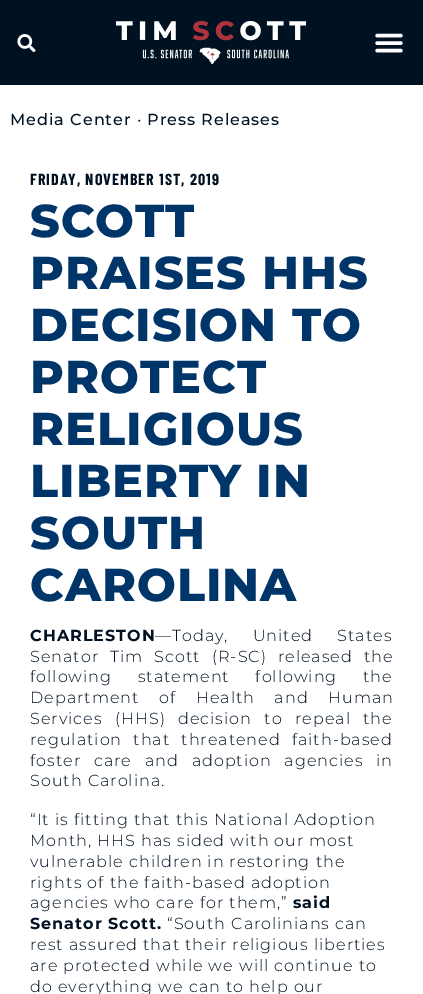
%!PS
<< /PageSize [423 994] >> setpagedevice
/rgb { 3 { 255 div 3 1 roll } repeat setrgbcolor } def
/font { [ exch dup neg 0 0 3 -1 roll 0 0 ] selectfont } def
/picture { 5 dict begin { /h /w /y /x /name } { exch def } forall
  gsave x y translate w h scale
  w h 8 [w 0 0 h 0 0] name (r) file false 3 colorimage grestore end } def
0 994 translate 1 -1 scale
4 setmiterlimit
255 255 255 rgb
0 0 423 994 rectfill
0 17 34 rgb
0 0 423 85 rectfill
(img/1.rgb) 17 34 19 19 picture
(img/2.rgb) 116 21 190 43 picture
(img/3.rgb) 375 33 28 20 picture
/Montserrat-Medium 16 font
10 125 moveto 1 0 (Media Center) ashow
/Montserrat-Light 16 font
137 125 moveto 1 0 (•) ashow
/Montserrat-Medium 16 font
147 125 moveto 1 0 (Press Releases) ashow
/BarlowCondensed-Bold 16 font
30 185 moveto 1 0 (FRIDAY, NOVEMBER 1ST, 2019) ashow
/Montserrat-ExtraBold 46 font
0 53 106 rgb
30 237 moveto 1 0 (SCOTT) ashow
30 289 moveto 1 0 (PRAISES HHS) ashow
30 341 moveto 1 0 (DECISION TO) ashow
30 393 moveto 1 0 (PROTECT) ashow
30 445 moveto 1 0 (RELIGIOUS) ashow
30 497 moveto 1 0 (LIBERTY IN) ashow
30 549 moveto 1 0 (SOUTH) ashow
30 601 moveto 1 0 (CAROLINA) ashow
/Montserrat-Bold 16 font
0 17 34 rgb
30 641 moveto 1 0 (CHARLESTON) ashow
/Montserrat-Light 16 font
155 641 moveto 19 0 32 1 0 (—Today, United States) awidthshow
30 662 moveto 6 0 32 1 0 (Senator Tim Scott \(R-SC\) released the) awidthshow
30 682 moveto 20.5 0 32 1 0 (following statement following the) awidthshow
30 703 moveto 14.5 0 32 1 0 (Department of Health and Human) awidthshow
30 724 moveto 7.25 0 32 1 0 (Services \(HHS\) decision to repeal the) awidthshow
30 745 moveto 6 0 32 1 0 (regulation that threatened faith-based) awidthshow
30 766 moveto 7.75 0 32 1 0 (foster care and adoption agencies in) awidthshow
30 786 moveto 1 0 (South Carolina.) ashow
30 825 moveto 1 0 (“It is fitting that this National Adoption) ashow
30 846 moveto 1 0 (Month, HHS has sided with our most) ashow
30 867 moveto 1 0 (vulnerable children in restoring the) ashow
30 888 moveto 1 0 (rights of the faith-based adoption) ashow
30 908 moveto 1 0 (agencies who care for them,”) ashow
/Montserrat-Bold 16 font
293 908 moveto 1 0 (said) ashow
30 929 moveto 1 0 (Senator Scott.) ashow
/Montserrat-Light 16 font
167 929 moveto 1 0 (“South Carolinians can) ashow
30 950 moveto 1 0 (rest assured that their religious liberties) ashow
30 971 moveto 1 0 (are protected while we will continue to) ashow
30 992 moveto 1 0 (do everything we can to help our) ashow
showpage
